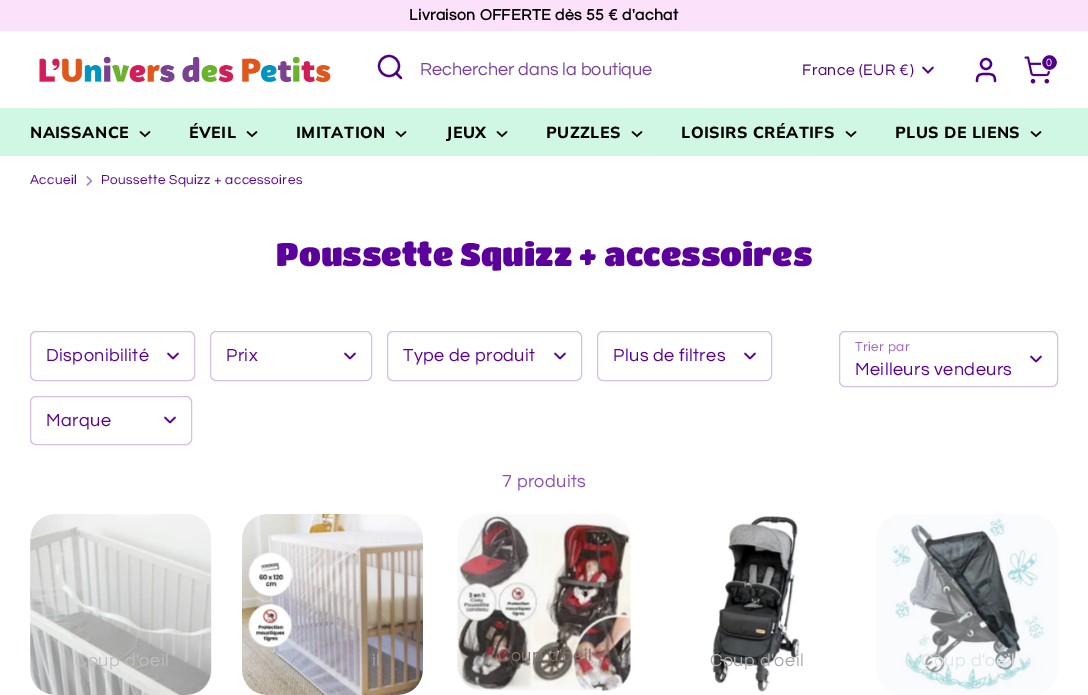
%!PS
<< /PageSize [1088 695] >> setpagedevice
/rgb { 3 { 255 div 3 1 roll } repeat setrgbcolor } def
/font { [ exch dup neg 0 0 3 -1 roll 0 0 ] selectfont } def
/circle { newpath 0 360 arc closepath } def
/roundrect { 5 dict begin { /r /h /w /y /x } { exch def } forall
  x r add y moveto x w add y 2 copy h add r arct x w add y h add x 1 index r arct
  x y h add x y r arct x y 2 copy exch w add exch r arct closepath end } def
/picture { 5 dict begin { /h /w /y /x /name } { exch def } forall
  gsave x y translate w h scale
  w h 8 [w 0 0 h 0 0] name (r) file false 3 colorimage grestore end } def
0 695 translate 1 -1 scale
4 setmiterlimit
255 255 255 rgb
0 0 1088 695 rectfill
252 225 251 rgb
0 0 1088 31 rectfill
(img/1.rgb) 39 54 294 29 picture
78 0 134 rgb
2.2 setlinewidth
389 66 10 circle stroke
1 setlinecap
1 setlinejoin
401 78 moveto 396 73 lineto stroke
995 81 moveto 995 74 992.5 74 986 74 curveto 979.5 74 977 74 977 81 curveto stroke
0 setlinecap
0 setlinejoin
986 64 5 circle stroke
(img/2.rgb) 1024 56 27 28 picture
1049.5 62.5 8 circle gsave fill grestore
255 255 255 rgb
1 setlinewidth
stroke
78 0 134 rgb
1.7 setlinewidth
1 setlinecap
923 67.5 moveto 928 72.5 lineto 933 67.5 lineto stroke
208 247 227 rgb
0 108 1088 48 rectfill
0 0 0 rgb
1.5 setlinewidth
140.5 132 moveto 145 136 lineto 149.5 132 lineto stroke
247.5 132 moveto 252 136 lineto 256.5 132 lineto stroke
396.5 132 moveto 401 136 lineto 405.5 132 lineto stroke
497.5 132 moveto 502 136 lineto 506.5 132 lineto stroke
632.5 132 moveto 637 136 lineto 641.5 132 lineto stroke
846.5 132 moveto 851 136 lineto 855.5 132 lineto stroke
1031.5 132 moveto 1036 136 lineto 1040.5 132 lineto stroke
(img/3.rgb) 86 176 7 10 picture
214 191 230 rgb
1 setlinewidth
0 setlinecap
30.5 331.5 164 49 5.5 roundrect stroke
91 0 156 rgb
1.7 setlinewidth
1 setlinecap
1 setlinejoin
168 353.5 moveto 173 358.5 lineto 178 353.5 lineto stroke
214 191 230 rgb
1 setlinewidth
0 setlinecap
0 setlinejoin
210.5 331.5 161 49 5.5 roundrect stroke
91 0 156 rgb
1.7 setlinewidth
1 setlinecap
1 setlinejoin
345 353.5 moveto 350 358.5 lineto 355 353.5 lineto stroke
214 191 230 rgb
1 setlinewidth
0 setlinecap
0 setlinejoin
387.5 331.5 194 49 5.5 roundrect stroke
91 0 156 rgb
1.7 setlinewidth
1 setlinecap
1 setlinejoin
555 353.5 moveto 560 358.5 lineto 565 353.5 lineto stroke
214 191 230 rgb
1 setlinewidth
0 setlinecap
0 setlinejoin
597.5 331.5 174 49 5.5 roundrect stroke
91 0 156 rgb
1.7 setlinewidth
1 setlinecap
1 setlinejoin
745 353.5 moveto 750 358.5 lineto 755 353.5 lineto stroke
214 191 230 rgb
1 setlinewidth
0 setlinecap
0 setlinejoin
30.5 396.5 161 48 5.5 roundrect stroke
91 0 156 rgb
1.7 setlinewidth
1 setlinecap
1 setlinejoin
165 417.5 moveto 170 422.5 lineto 175 417.5 lineto stroke
214 191 230 rgb
1 setlinewidth
0 setlinecap
0 setlinejoin
839.5 331.5 218 55 5.5 roundrect stroke
91 0 156 rgb
1.7 setlinewidth
1 setlinecap
1 setlinejoin
1031 356.5 moveto 1036 361.5 lineto 1041 356.5 lineto stroke
(img/4.rgb) 30 514 182 181 picture
(img/5.rgb) 242 514 181 181 picture
(img/6.rgb) 457 514 174 177 picture
(img/7.rgb) 711 516 89 176 picture
(img/8.rgb) 876 514 182 181 picture
/Questrial-Bold 15.75 font
0 0 0 rgb
409 20 moveto 0.45 0 (Livraison OFFERTE dès 55 € d'achat) ashow
/Questrial-Regular 18 font
122 64 164 rgb
420 75 moveto (Rechercher dans la boutique) show
/Questrial-Regular 11 font
255 255 255 rgb
1046 66 moveto (0) show
/Questrial-Regular 15.75 font
78 0 134 rgb
802 75 moveto 0.45 0 (France \(EUR €\)) ashow
/Muli-ExtraBold 16 font
0 0 0 rgb
30 138 moveto 0.45 0 (NAISSANCE) ashow
189 138 moveto 0.45 0 (ÉVEIL) ashow
296 138 moveto 0.45 0 (IMITATION) ashow
446 138 moveto 0.45 0 (JEUX) ashow
546 138 moveto 0.45 0 (PUZZLES) ashow
681 138 moveto 0.45 0 (LOISIRS CRÉATIFS) ashow
895 138 moveto 0.45 0 (PLUS DE LIENS) ashow
/Questrial-Regular 13.5 font
91 0 156 rgb
30 184 moveto 0.45 0 (Accueil) ashow
101 184 moveto 0.45 0 (Poussette Squizz + accessoires) ashow
/TitanOne-Regular 32 font
276 266 moveto (Poussette Squizz + accessoires) show
/Questrial-Regular 18 font
46 361 moveto 0.45 0 (Disponibilité) ashow
226 361 moveto 0.45 0 (Prix) ashow
403 361 moveto 0.45 0 (Type de produit) ashow
613 361 moveto 0.45 0 (Plus de filtres) ashow
46 426 moveto 0.45 0 (Marque) ashow
/Questrial-Regular 13.5 font
157 102 196 rgb
855 351 moveto 0.45 0 (Trier par) ashow
/Questrial-Regular 18 font
91 0 156 rgb
855 375 moveto 0.45 0 (Meilleurs vendeurs) ashow
140 77 186 rgb
502 487 moveto 0.45 0 (7 produits) ashow
190 190 189 rgb
75 666 moveto 0.45 0 (Coup d'oeil) ashow
171 167 173 rgb
372 666 moveto 0.45 0 (il) ashow
132 113 108 rgb
498 661 moveto 0.45 0 (Coup d'oeil) ashow
171 167 173 rgb
710 666 moveto 0.45 0 (Coup d'oeil) ashow
225 229 231 rgb
921 666 moveto 0.45 0 (Coup d'oeil) ashow
showpage
